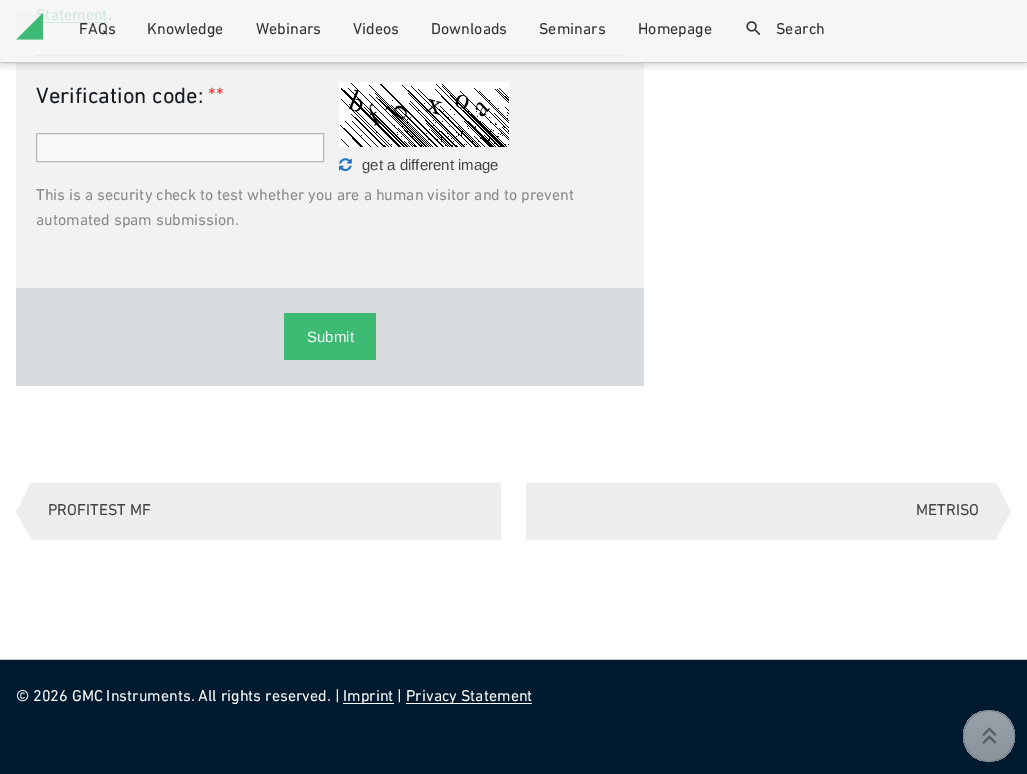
%!PS
<< /PageSize [1027 774] /PageUsesTransparency true >> setpagedevice
/rgb { 3 { 255 div 3 1 roll } repeat setrgbcolor } def
/font { [ exch dup neg 0 0 3 -1 roll 0 0 ] selectfont } def
/alpha { dup .setfillconstantalpha .setstrokeconstantalpha } def
/circle { newpath 0 360 arc closepath } def
/roundrect { 5 dict begin { /r /h /w /y /x } { exch def } forall
  x r add y moveto x w add y 2 copy h add r arct x w add y h add x 1 index r arct
  x y h add x y r arct x y 2 copy exch w add exch r arct closepath end } def
/shadow { 12 dict begin { /a /b /q /h /w /y /x } { exch def } forall gsave /was 0 def
  9 -2 -9 { dup b mul 4 div /e exch def 1 sub .425 mul 2.718 exch exp 1 add a .99 .min exch div /now exch def
    1 1 now sub 1 was sub div sub alpha /was now def
    w h .min e 2 mul add 0 gt { x e sub y e sub w e 2 mul add h e 2 mul add
      q e add b .6 mul add w h .min 2 div e add .min 0 .max roundrect fill } if } for grestore end } def
/picture { 5 dict begin { /h /w /y /x /name } { exch def } forall
  gsave x y translate w h scale
  w h 8 [w 0 0 h 0 0] name (r) file false 3 colorimage grestore end } def
0 .pushpdf14devicefilter
0 774 translate 1 -1 scale
4 setmiterlimit
255 255 255 rgb
0 0 1027 774 rectfill
[
  [0 0 1027 62 246 246 246]
  [16 63 628 225 242 242 242]
  [36 22 72 1 207 233 218]
  [36 55 588 1 235 235 235]
] { aload pop rgb rectfill } forall
248 248 248 rgb
36.5 133.5 moveto 323.5 133.5 lineto 323.5 161.5 lineto 36.5 161.5 lineto closepath gsave fill grestore
184 184 184 rgb
stroke
255 255 255 rgb
339 82 170 65 rectfill
(img/1.rgb) 340 83 169 64 picture
(img/2.rgb) 339 158 13 14 picture
[
  [16 288 628 98 217 220 222]
  [284 313 92 47 61 187 116]
  [31 483 470 57 237 237 237]
] { aload pop rgb rectfill } forall
gsave 16 484 moveto 31 484 lineto 31 511 lineto 16 511 lineto closepath clip newpath
<< /ShadingType 2 /ColorSpace /DeviceRGB /Coords [35 503 12 491] /Extend [true true] /Function << /FunctionType 3 /Domain [0 1] /Functions [<< /FunctionType 2 /Domain [0 1] /C0 [0.929 0.929 0.929] /C1 [0.929 0.929 0.929] /N 1 >> << /FunctionType 2 /Domain [0 1] /C0 [1 1 1] /C1 [1 1 1] /N 1 >>] /Bounds [0.5] /Encode [0 1 0 1] >> >> shfill grestore
gsave 16 511 moveto 31 511 lineto 31 538 lineto 16 538 lineto closepath clip newpath
<< /ShadingType 2 /ColorSpace /DeviceRGB /Coords [35 519 12 532] /Extend [true true] /Function << /FunctionType 3 /Domain [0 1] /Functions [<< /FunctionType 2 /Domain [0 1] /C0 [0.929 0.929 0.929] /C1 [0.929 0.929 0.929] /N 1 >> << /FunctionType 2 /Domain [0 1] /C0 [1 1 1] /C1 [1 1 1] /N 1 >>] /Bounds [0.5] /Encode [0 1 0 1] >> >> shfill grestore
526 483 470 57 rectfill
gsave 996 484 moveto 1011 484 lineto 1011 511 lineto 996 511 lineto closepath clip newpath
<< /ShadingType 2 /ColorSpace /DeviceRGB /Coords [992 503 1015 491] /Extend [true true] /Function << /FunctionType 3 /Domain [0 1] /Functions [<< /FunctionType 2 /Domain [0 1] /C0 [0.929 0.929 0.929] /C1 [0.929 0.929 0.929] /N 1 >> << /FunctionType 2 /Domain [0 1] /C0 [1 1 1] /C1 [1 1 1] /N 1 >>] /Bounds [0.5] /Encode [0 1 0 1] >> >> shfill grestore
gsave 996 511 moveto 1011 511 lineto 1011 538 lineto 996 538 lineto closepath clip newpath
<< /ShadingType 2 /ColorSpace /DeviceRGB /Coords [992 519 1015 532] /Extend [true true] /Function << /FunctionType 3 /Domain [0 1] /Functions [<< /FunctionType 2 /Domain [0 1] /C0 [0.929 0.929 0.929] /C1 [0.929 0.929 0.929] /N 1 >> << /FunctionType 2 /Domain [0 1] /C0 [1 1 1] /C1 [1 1 1] /N 1 >>] /Bounds [0.5] /Encode [0 1 0 1] >> >> shfill grestore
gsave
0 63 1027 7 rectclip
0 0 0 rgb
2 3 1023 60 0 5 0.25 shadow
grestore
199 199 199 rgb
0 62 1027 1 rectfill
(img/4.rgb) 746 21 15 15 picture
[
  [0 660 1027 114 0 26 48]
  [0 659 1027 1 199 199 199]
  [343 703 51 1 255 255 255]
  [406 703 126 1 255 255 255]
] { aload pop rgb rectfill } forall
0 19 34 rgb
971 755 moveto 981 765 998 766 1008 755 curveto 1019 745 1018 728 1008 718 curveto 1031 742 995 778 971 755 curveto closepath fill
gsave
963 710 52 52 26 roundrect clip newpath
gsave 963 711 moveto 1015 711 lineto 1015 761 lineto 963 761 lineto closepath clip newpath
<< /ShadingType 2 /ColorSpace /DeviceRGB /Coords [989 711 989 761] /Extend [true true] /Function << /FunctionType 2 /Domain [0 1] /C0 [0.592 0.635 0.671] /C1 [0.537 0.576 0.612] /N 1 >> >> shfill grestore
grestore
118 129 138 rgb
989 736 25.5 circle stroke
(img/5.rgb) 982 727 15 17 picture
/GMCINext-Regular 16 font
207 233 218 rgb
36 20 moveto (Statement) show
205 205 205 rgb
108 20 moveto (.) show
/GMCINext-Regular 22.5 font
20 27 33 rgb
36 103 moveto (Verification code:) show
241 65 65 rgb
208 103 moveto (**) show
/LiberationSans-Regular 15 font
68 68 68 rgb
362 170 moveto (get a different image) show
/GMCINext-Regular 16 font
138 138 138 rgb
36 200 moveto (This is a security check to test whether you are a human visitor and to prevent) show
36 225 moveto (automated spam submission.) show
/LiberationSans-Regular 15 font
255 255 255 rgb
307 342 moveto (Submit) show
/GMCINext-Regular 16 font
68 68 68 rgb
48 515 moveto (PROFITEST MF) show
916 515 moveto (METRISO) show
(img/3.rgb) 16 12 27 28 picture
51 51 51 rgb
[
  [(FAQs) 79 34]
  [(Knowledge) 147 34]
  [(Webinars) 256 34]
  [(Videos) 353 34]
  [(Downloads) 431 34]
  [(Seminars) 539 34]
  [(Homepage) 638 34]
  [(Search) 776 34]
] { aload pop moveto show } forall
255 255 255 rgb
[
  [(© 2026 GMC Instruments. All rights reserved. |) 16 701]
  [(Imprint |) 343 701]
  [(Privacy Statement) 406 701]
] { aload pop moveto show } forall
.poppdf14devicefilter showpage
